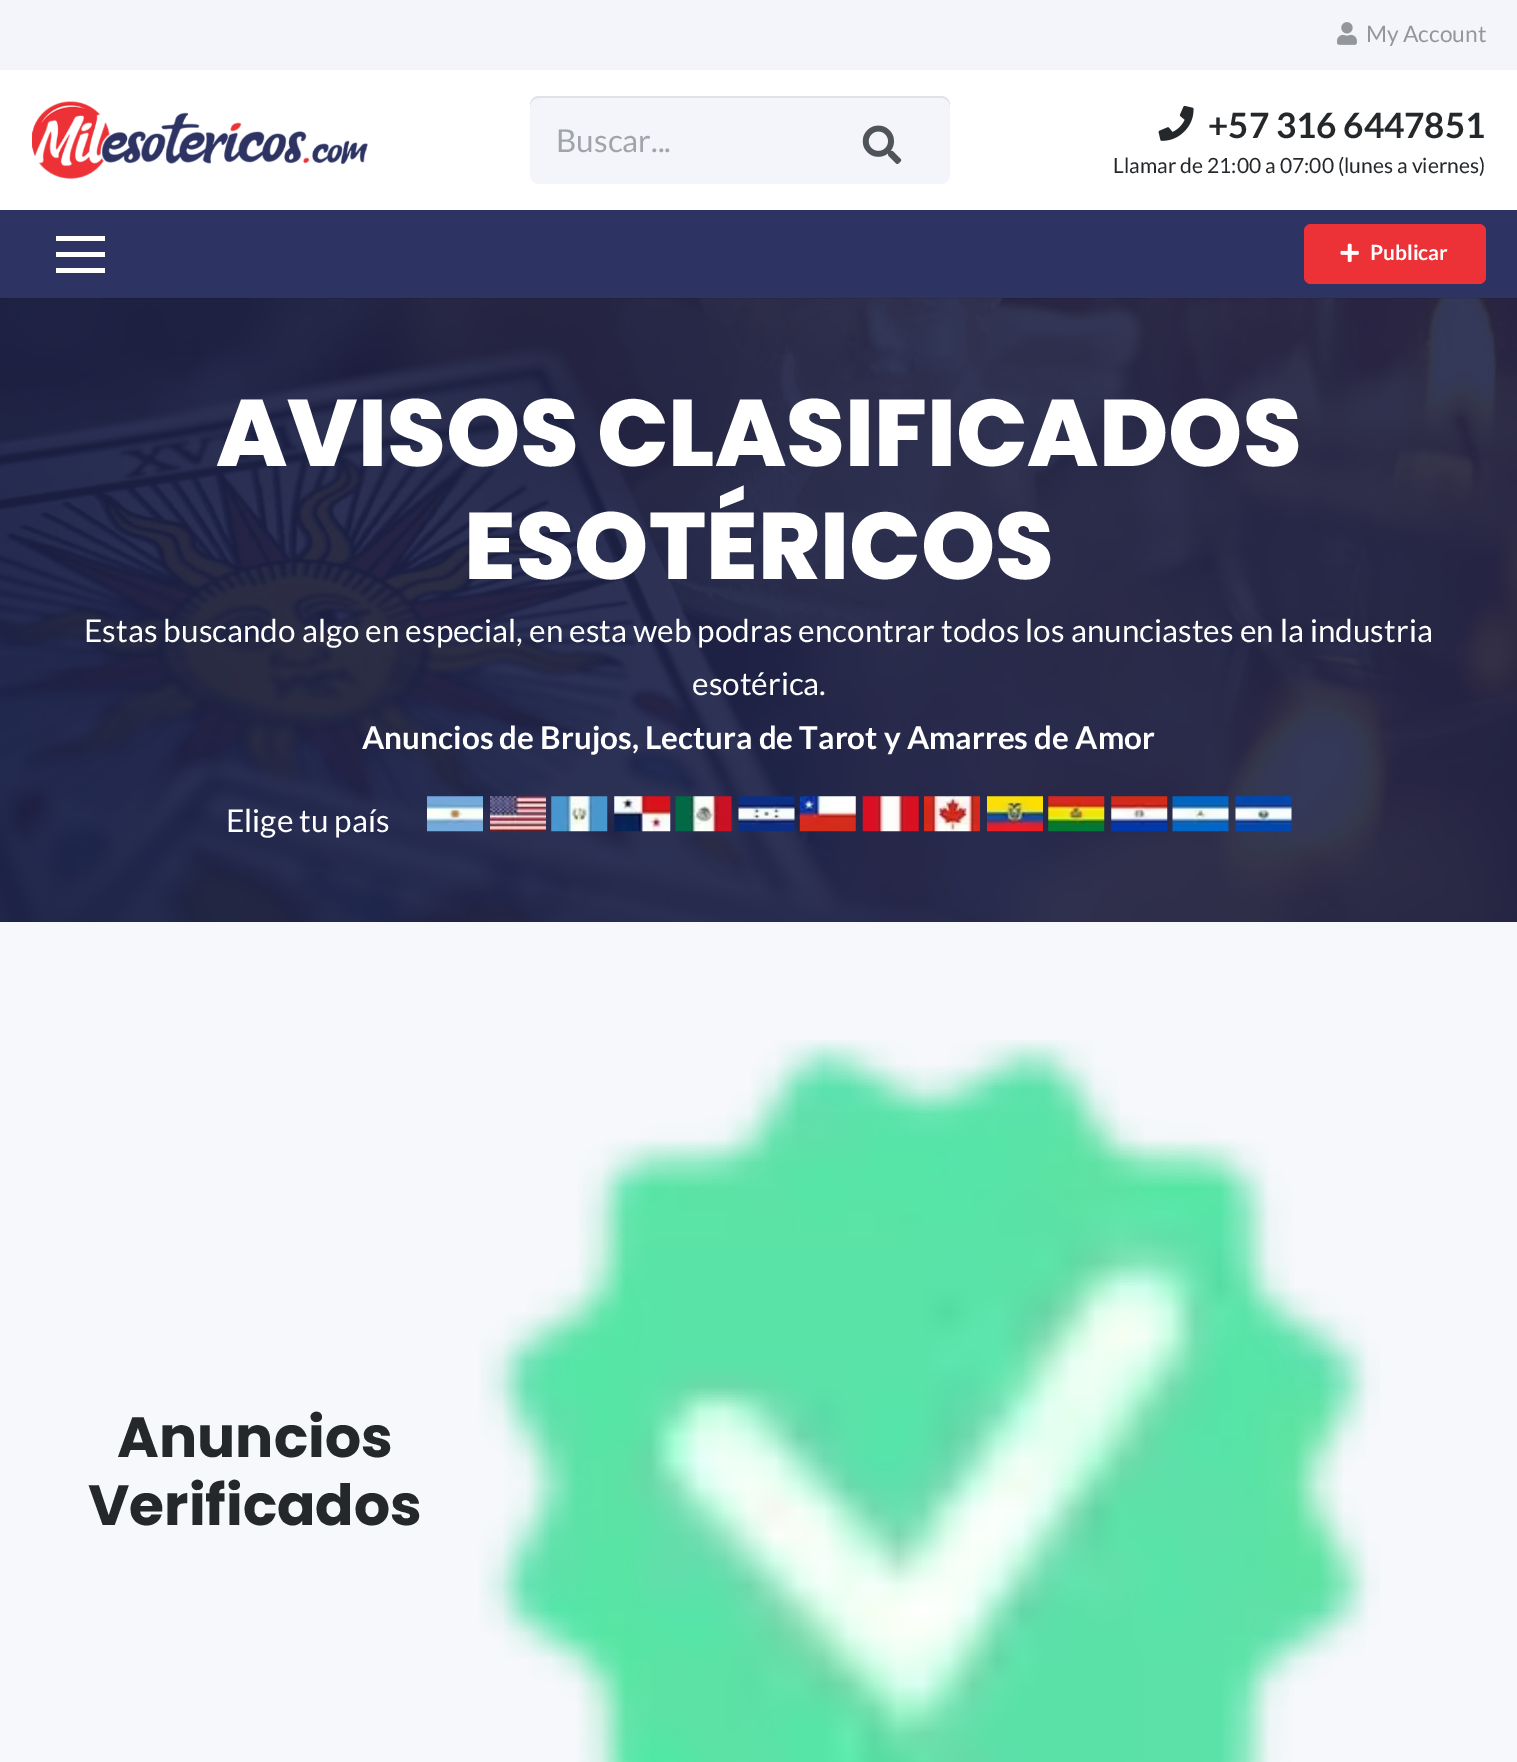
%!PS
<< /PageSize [1517 1762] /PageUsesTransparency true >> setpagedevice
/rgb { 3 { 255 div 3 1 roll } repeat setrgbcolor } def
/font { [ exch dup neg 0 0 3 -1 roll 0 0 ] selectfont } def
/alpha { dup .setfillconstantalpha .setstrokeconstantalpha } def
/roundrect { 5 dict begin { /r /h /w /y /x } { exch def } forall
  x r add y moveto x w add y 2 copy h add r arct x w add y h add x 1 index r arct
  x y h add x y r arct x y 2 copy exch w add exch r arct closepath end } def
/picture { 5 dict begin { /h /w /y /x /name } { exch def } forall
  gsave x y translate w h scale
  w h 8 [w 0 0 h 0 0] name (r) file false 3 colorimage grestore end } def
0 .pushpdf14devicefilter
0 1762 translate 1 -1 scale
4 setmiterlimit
255 255 255 rgb
0 0 1517 1762 rectfill
243 245 251 rgb
0 0 1517 70 rectfill
(img/1.rgb) 1337 22 20 23 picture
(img/2.rgb) 32 101 336 78 picture
530 96 420 88 9 roundrect fill
0.08 alpha
0 0 0 rgb
539 98 moveto 942 98 lineto 946 98 950 102 950 107 curveto 950 105 lineto 950 100 946 96 941 96 curveto 539 96 lineto 534 96 530 100 530 105 curveto 530 107 lineto 530 102 534 98 539 98 curveto closepath fill
1 alpha
(img/3.rgb) 862 125 40 39 picture
(img/4.rgb) 1158 105 36 36 picture
(img/6.rgb) 0 298 1517 624 picture
0.08 alpha
[
  [0 298 1517 1 0 0 0]
] { aload pop rgb rectfill } forall
1 alpha
[
  [0 210 1517 88 45 51 99]
  [56 252 49 5 255 255 255]
  [56 236 49 5 255 255 255]
  [56 268 49 5 255 255 255]
] { aload pop rgb rectfill } forall
237 50 55 rgb
1304 224 182 60 7 roundrect fill
(img/5.rgb) 1340 243 19 20 picture
(img/7.rgb) 427 796 56 36 picture
(img/8.rgb) 490 796 56 36 picture
(img/9.rgb) 551 796 57 36 picture
(img/10.rgb) 614 796 57 36 picture
(img/11.rgb) 675 796 57 36 picture
(img/12.rgb) 738 796 57 36 picture
(img/13.rgb) 799 796 57 36 picture
(img/14.rgb) 862 796 57 36 picture
(img/15.rgb) 924 796 56 36 picture
(img/16.rgb) 987 796 56 36 picture
(img/17.rgb) 1048 796 57 36 picture
(img/18.rgb) 1111 796 57 36 picture
(img/19.rgb) 1172 796 57 36 picture
(img/20.rgb) 1235 796 57 36 picture
246 248 251 rgb
0 922 1517 840 rectfill
(img/21.rgb) 479 1040 901 722 picture
/Lato-Regular 22.75 font
148 151 153 rgb
1366 42 moveto (My Account) show
/Lato-Regular 31.5 font
161 165 170 rgb
556 152 moveto (Buscar...) show
/Lato-Bold 35 font
37 40 43 rgb
1208 138 moveto (+57 316 6447851) show
/Lato-Regular 21 font
1113 173 moveto (Llamar de 21:00 a 07:00 \(lunes a viernes\)) show
/Lato-Bold 21 font
255 255 255 rgb
1370 260 moveto (Publicar) show
/Poppins-ExtraBold 94.5 font
216 466 moveto (AVISOS CLASIFICADOS) show
464 579 moveto (ESOTÉRICOS) show
/Lato-Regular 31.5 font
84 642 moveto (Estas buscando algo en especial, en esta web podras encontrar todos los anunciastes en la industria) show
692 695 moveto (esotérica.) show
/Lato-Bold 31.5 font
362 749 moveto (Anuncios de Brujos, Lectura de Tarot y Amarres de Amor) show
/Lato-Regular 31.5 font
226 832 moveto (Elige tu país) show
/Poppins-Bold 56.75 font
37 40 43 rgb
117 1457 moveto (Anuncios) show
88 1525 moveto (Verificados) show
.poppdf14devicefilter showpage
